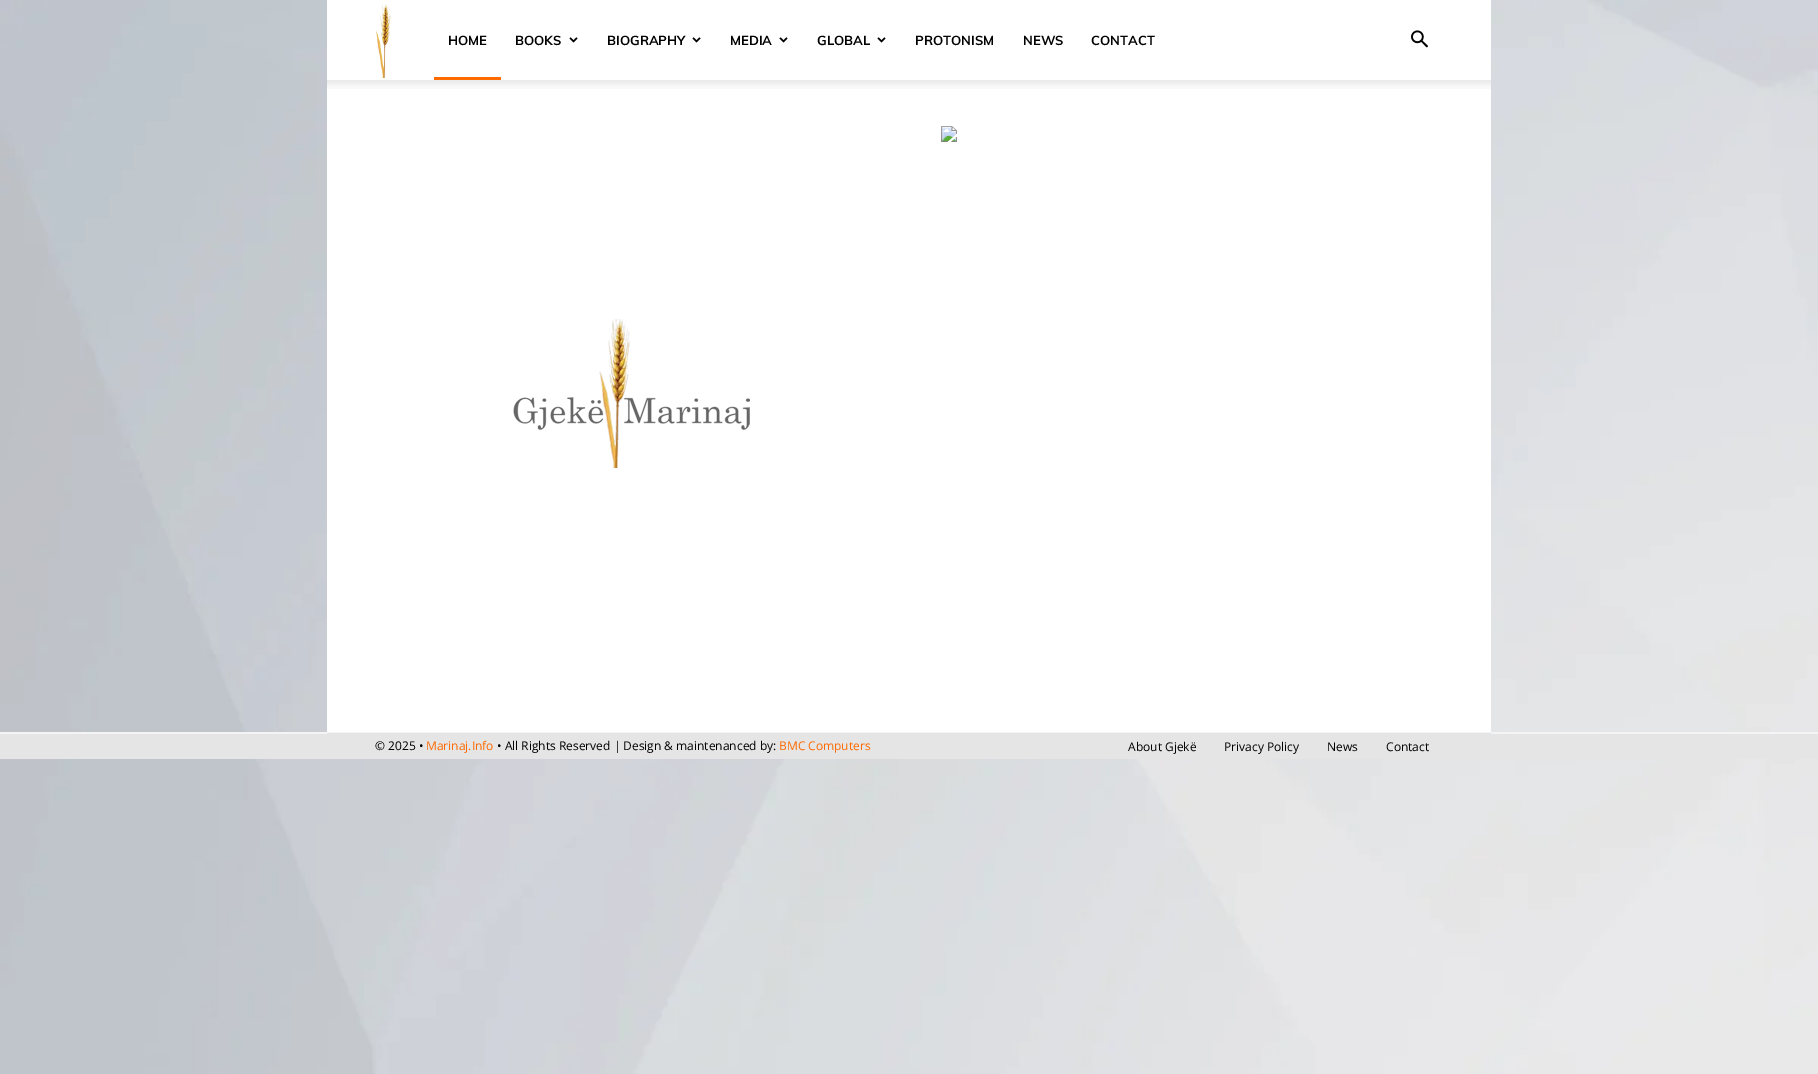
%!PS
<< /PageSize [1818 1074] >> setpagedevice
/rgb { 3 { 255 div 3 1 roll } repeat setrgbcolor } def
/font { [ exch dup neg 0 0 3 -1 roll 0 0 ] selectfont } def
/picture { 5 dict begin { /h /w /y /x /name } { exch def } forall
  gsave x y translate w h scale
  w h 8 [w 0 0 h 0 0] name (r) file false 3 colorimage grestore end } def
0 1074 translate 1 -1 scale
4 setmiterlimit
255 255 255 rgb
0 0 1818 1074 rectfill
(img/1.rgb) 0 0 1818 1074 picture
327 0 1164 732 rectfill
(img/2.rgb) 941 126 16 16 picture
(img/3.rgb) 513 319 237 149 picture
(img/4.rgb) 376 4 15 74 picture
255 106 0 rgb
434 77 67 3 rectfill
(img/5.rgb) 569 37 9 6 picture
(img/5.rgb) 692 37 9 6 picture
(img/5.rgb) 779 37 9 6 picture
(img/5.rgb) 877 37 9 6 picture
(img/6.rgb) 1411 30 17 18 picture
(img/7.rgb) 327 80 1164 9 picture
[
  [0 732 1818 2 244 244 244]
  [327 733 1164 1 229 229 229]
  [0 734 1818 25 229 229 229]
] { aload pop rgb rectfill } forall
/Muli-Bold 13 font
0 0 0 rgb
[
  [(HOME) 448 45]
  [(BOOKS) 515 45]
  [(BIOGRAPHY) 607 45]
  [(MEDIA) 730 45]
  [(GLOBAL) 817 45]
  [(PROTONISM) 915 45]
  [(NEWS) 1023 45]
  [(CONTACT) 1091 45]
] { aload pop moveto show } forall
/OpenSans-Regular 12 font
375 750 moveto (© 2025 •) show
255 106 0 rgb
426 750 moveto (Marinaj.Info) show
0 0 0 rgb
497 750 moveto (• All Rights Reserved | Design & maintenanced by:) show
255 106 0 rgb
779 750 moveto (BMC Computers) show
0 0 0 rgb
[
  [(About Gjekë) 1128 751]
  [(Privacy Policy) 1224 751]
  [(News) 1327 751]
  [(Contact) 1386 751]
] { aload pop moveto show } forall
showpage
